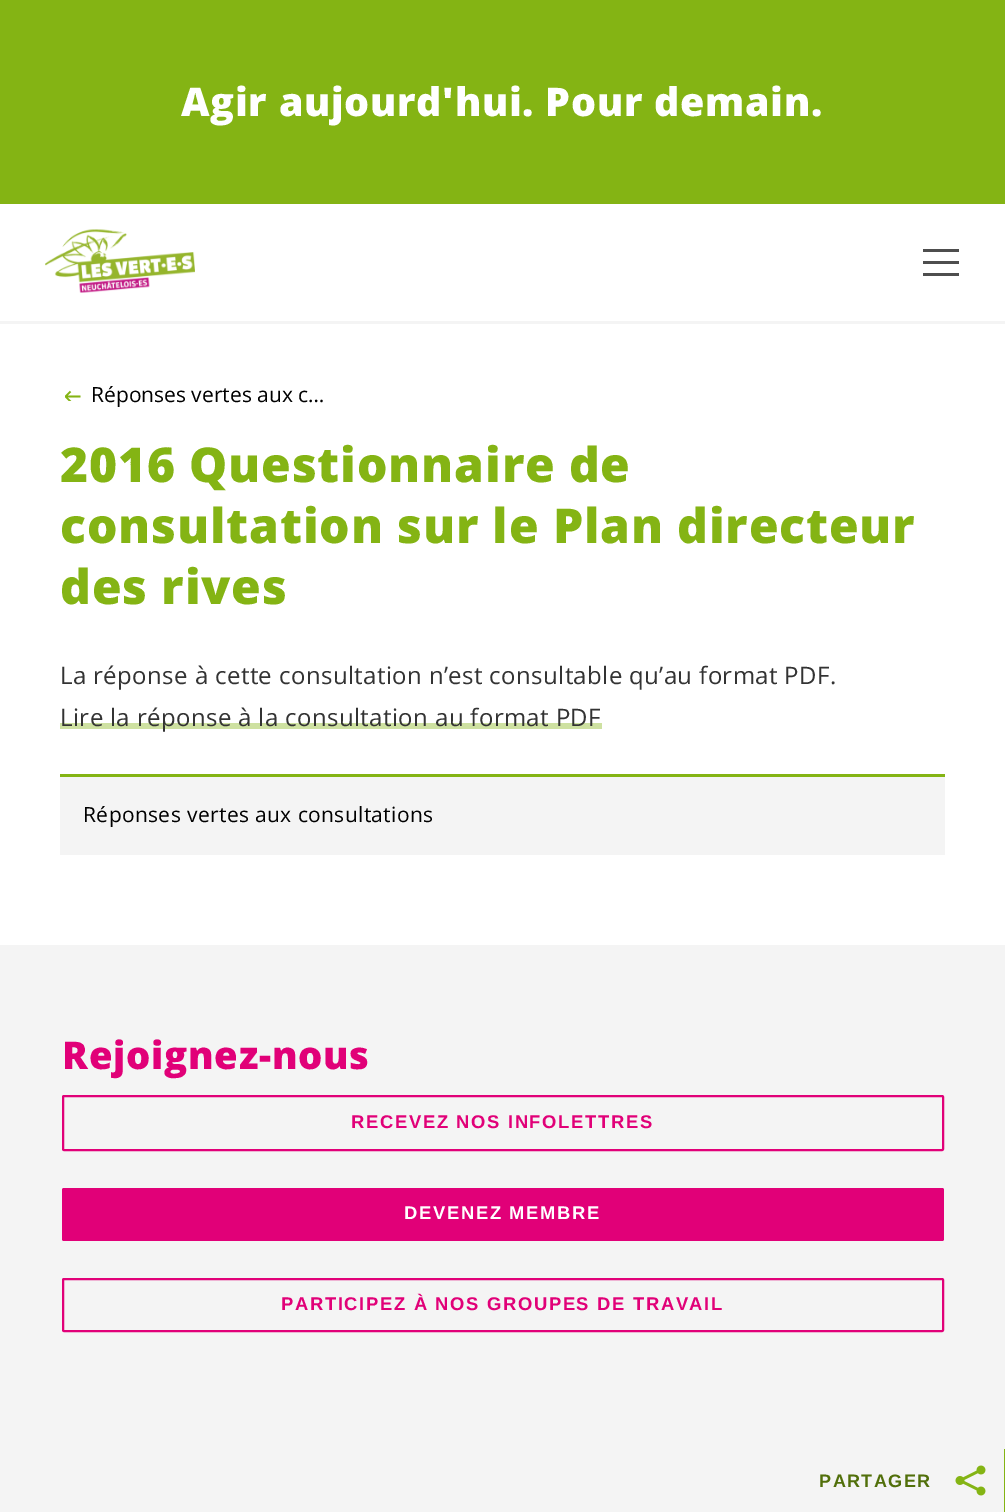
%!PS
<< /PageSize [1005 1512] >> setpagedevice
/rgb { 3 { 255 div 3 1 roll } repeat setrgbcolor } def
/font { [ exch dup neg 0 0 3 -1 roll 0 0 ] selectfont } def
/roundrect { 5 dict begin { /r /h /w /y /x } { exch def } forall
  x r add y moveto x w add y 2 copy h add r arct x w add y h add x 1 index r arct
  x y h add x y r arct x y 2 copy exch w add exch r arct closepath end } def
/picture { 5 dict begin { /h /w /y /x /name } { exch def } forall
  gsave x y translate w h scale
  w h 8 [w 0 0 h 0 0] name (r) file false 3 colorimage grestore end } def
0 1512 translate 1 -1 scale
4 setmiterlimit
255 255 255 rgb
0 0 1005 1512 rectfill
132 180 20 rgb
0 0 1005 204 rectfill
244 244 244 rgb
0 321 1005 3 rectfill
(img/1.rgb) 45 229 150 64 picture
[
  [923 261 36 3 78 78 78]
  [923 249 36 3 78 78 78]
  [923 273 36 3 78 78 78]
] { aload pop rgb rectfill } forall
gsave
65 390 16 11 rectclip
132 180 20 rgb
1.7 setlinewidth
70.5 401.5 moveto 65.5 396.5 lineto 70.5 391.5 lineto 65.5 396.5 moveto 80.5 396.5 lineto stroke
grestore
[
  [60 723 542 6 206 225 161]
  [60 777 885 78 244 244 244]
  [60 774 885 3 132 180 20]
  [0 945 1005 567 244 244 244]
  [1004 1449 1 63 132 180 20]
] { aload pop rgb rectfill } forall
(img/2.rgb) 955 1465 31 31 picture
225 0 120 rgb
2 setlinewidth
63 1096 880 54 1 roundrect stroke
62 1188 882 53 2 roundrect fill
63 1279 880 52 1 roundrect stroke
/OpenSans-ExtraBold 39.4 font
255 255 255 rgb
181 116 moveto 0.7 0 (Agir aujourd'hui. Pour demain.) ashow
/OpenSans-Regular 21 font
0 0 0 rgb
91 402 moveto (Réponses vertes aux c…) show
/OpenSans-ExtraBold 48 font
132 180 20 rgb
60 482 moveto 0.85 0 (2016 Questionnaire de) ashow
60 543 moveto 0.85 0 (consultation sur le Plan directeur) ashow
60 604 moveto 0.85 0 (des rives) ashow
/OpenSans-Regular 24 font
51 51 51 rgb
60 684 moveto 0.38 0 (La réponse à cette consultation n’est consultable qu’au format PDF.) ashow
60 726 moveto 0.38 0 (Lire la réponse à la consultation au format PDF) ashow
/OpenSans-Regular 21 font
0 0 0 rgb
83 822 moveto 0.38 0 (Réponses vertes aux consultations) ashow
/LiberationSans-Bold 18 font
81 111 10 rgb
819 1487 moveto 1.5 0 (PARTAGER) ashow
/OpenSans-ExtraBold 38.25 font
225 0 120 rgb
62 1069 moveto 0.7 0 (Rejoignez-nous) ashow
/LiberationSans-Bold 18.4 font
351 1128 moveto 1.65 0 (RECEVEZ NOS INFOLETTRES) ashow
255 255 255 rgb
404 1219 moveto 1.65 0 (DEVENEZ MEMBRE) ashow
225 0 120 rgb
281 1310 moveto 1.65 0 (PARTICIPEZ À NOS GROUPES DE TRAVAIL) ashow
showpage
